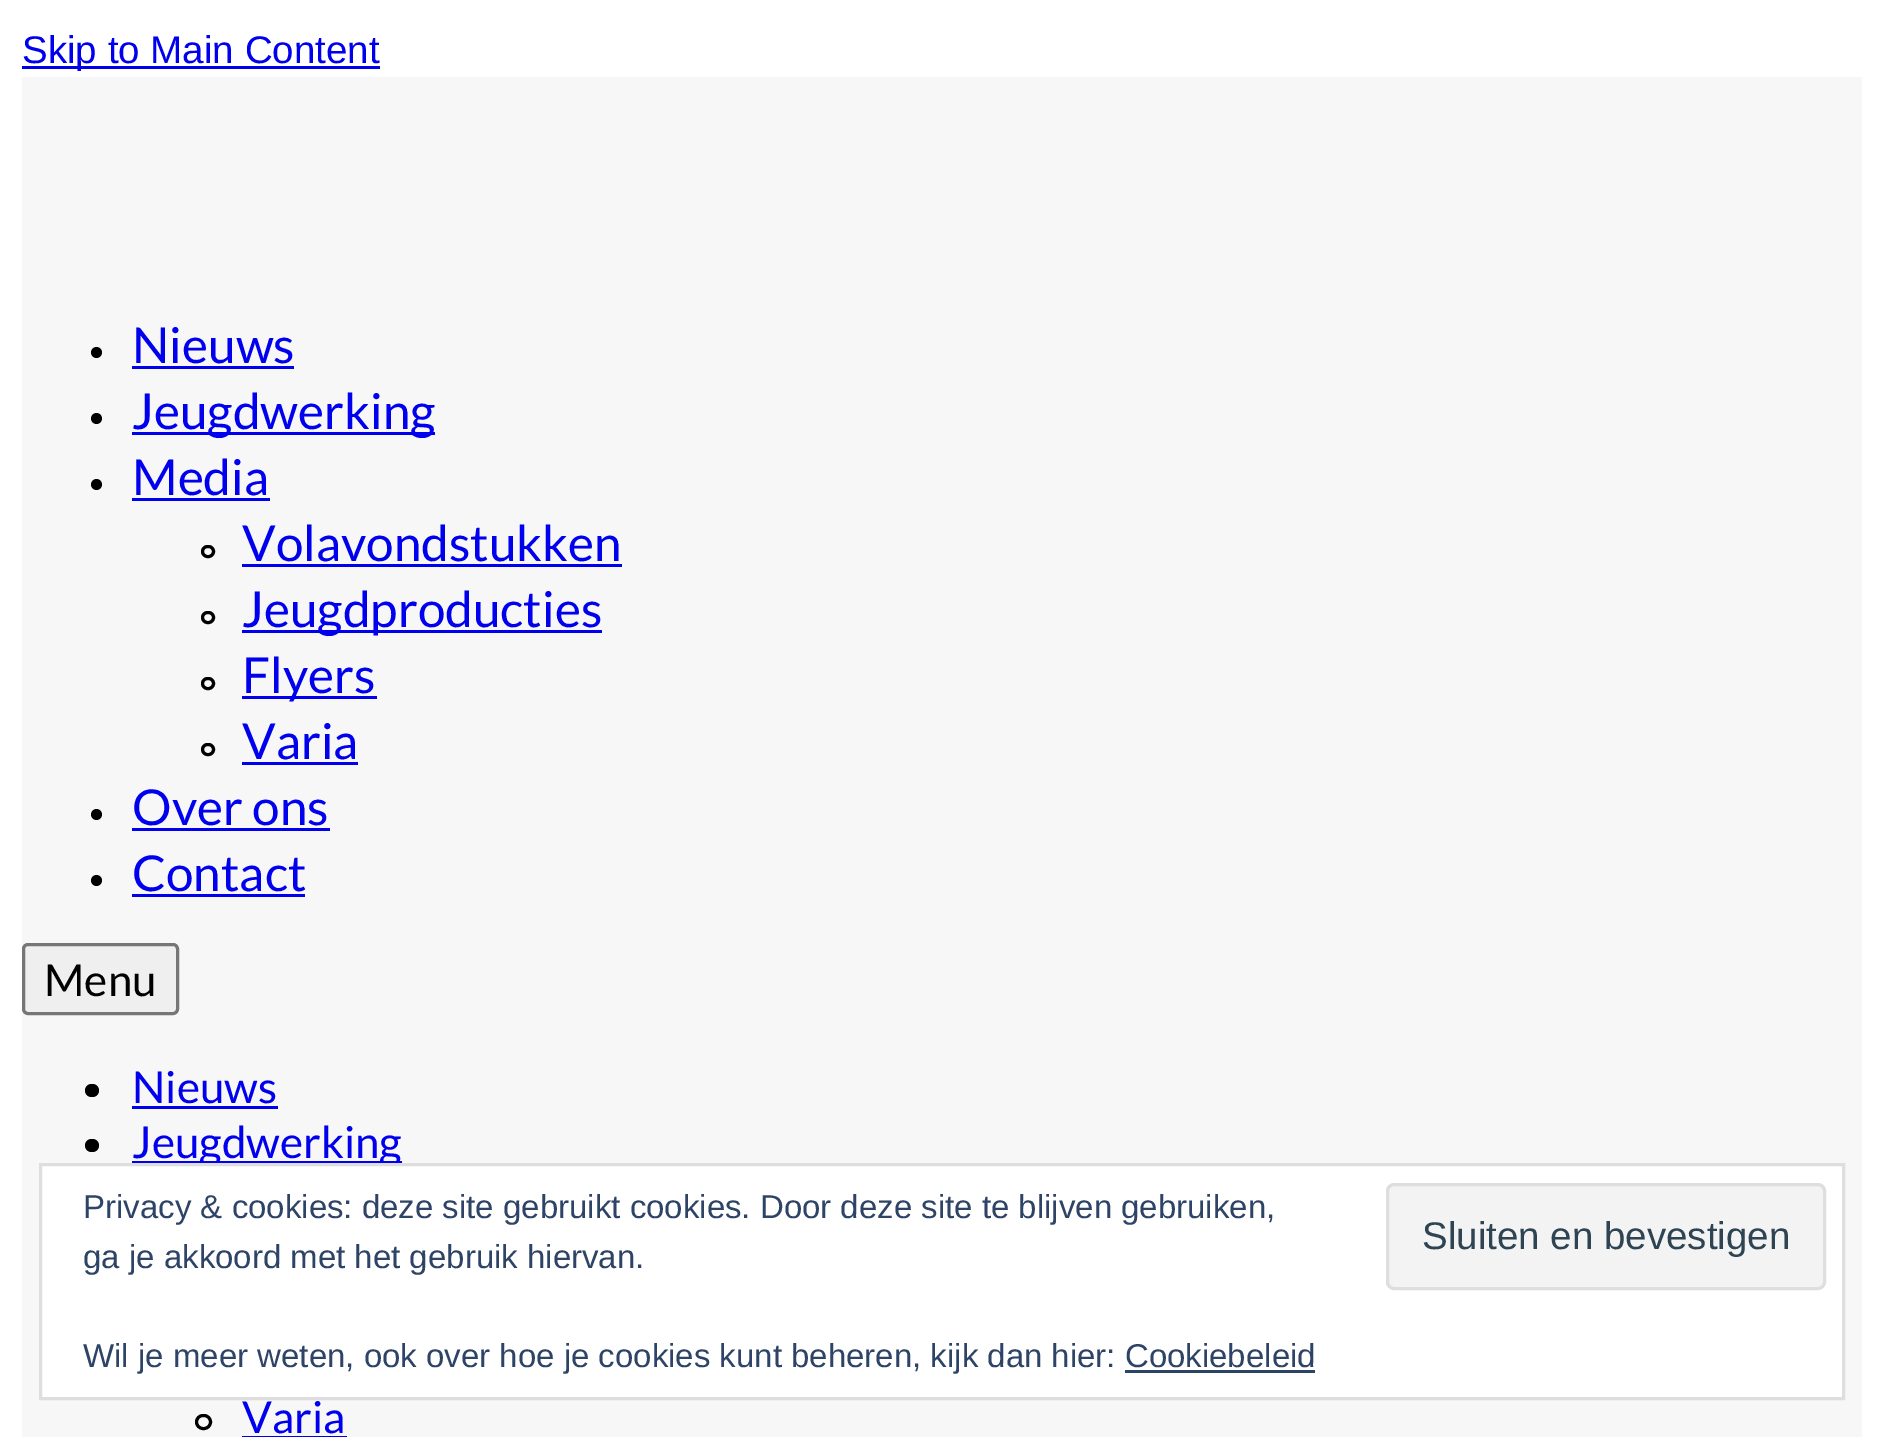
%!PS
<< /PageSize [1882 1437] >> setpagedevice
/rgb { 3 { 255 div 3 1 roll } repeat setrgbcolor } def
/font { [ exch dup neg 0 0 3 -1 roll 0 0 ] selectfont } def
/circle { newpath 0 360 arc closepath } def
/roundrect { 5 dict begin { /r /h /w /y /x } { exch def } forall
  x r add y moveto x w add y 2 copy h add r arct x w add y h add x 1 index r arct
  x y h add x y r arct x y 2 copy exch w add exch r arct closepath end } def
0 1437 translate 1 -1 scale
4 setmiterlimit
255 255 255 rgb
0 0 1882 1437 rectfill
0 0 238 rgb
22 66 358 3 rectfill
247 247 247 rgb
22 77 1840 1360 rectfill
0 0 0 rgb
96.5 352.5 5.5 circle fill
0 0 238 rgb
132 366 162 3 rectfill
0 0 0 rgb
96.5 418.5 5.5 circle fill
0 0 238 rgb
132 432 303 3 rectfill
0 0 0 rgb
96.5 484.5 5.5 circle fill
0 0 238 rgb
132 498 138 3 rectfill
0 0 0 rgb
3 setlinewidth
202.5 546.5 11 10 5 roundrect stroke
0 0 238 rgb
242 564 380 3 rectfill
0 0 0 rgb
202.5 612.5 11 10 5 roundrect stroke
0 0 238 rgb
242 630 360 3 rectfill
0 0 0 rgb
202.5 678.5 11 10 5 roundrect stroke
0 0 238 rgb
242 696 135 3 rectfill
0 0 0 rgb
202.5 744.5 11 10 5 roundrect stroke
0 0 238 rgb
242 762 116 3 rectfill
0 0 0 rgb
96.5 814.5 5.5 circle fill
0 0 238 rgb
132 828 198 3 rectfill
0 0 0 rgb
96.5 880.5 5.5 circle fill
0 0 238 rgb
132 894 173 3 rectfill
239 239 239 rgb
23.5 944.5 154 69 4.5 roundrect gsave fill grestore
118 118 118 rgb
stroke
0 0 0 rgb
85 1084 14 13 6.5 roundrect fill
0 0 238 rgb
132 1106 146 3 rectfill
0 0 0 rgb
85 1139 14 13 6.5 roundrect fill
0 0 238 rgb
132 1161 270 2 rectfill
0 0 0 rgb
196.5 1415.5 14 13 6.5 roundrect stroke
0 0 238 rgb
242 1436 105 1 rectfill
/LiberationSans-Regular 38.5 font
22 63 moveto (Skip to Main Content) show
/Lato-Regular 49.5 font
[
  [(Nieuws) 132 363]
  [(Jeugdwerking) 132 429]
  [(Media) 132 495]
  [(Volavondstukken) 242 561]
  [(Jeugdproducties) 242 627]
  [(Flyers) 242 693]
  [(Varia) 242 759]
  [(Over ons) 132 825]
  [(Contact) 132 891]
] { aload pop moveto show } forall
/Lato-Regular 44 font
0 0 0 rgb
44 996 moveto (Menu) show
0 0 238 rgb
[
  [(Nieuws) 132 1103]
  [(Jeugdwerking) 132 1158]
  [(Varia) 242 1433]
] { aload pop moveto show } forall
255 255 255 rgb
40.5 1164.5 moveto 1843.5 1164.5 lineto 1843.5 1398.5 lineto 40.5 1398.5 lineto closepath gsave fill grestore
222 222 222 rgb
stroke
/LiberationSans-Regular 33 font
46 68 103 rgb
83 1218 moveto (Privacy & cookies: deze site gebruikt cookies. Door deze site te blijven gebruiken,) show
83 1268 moveto (ga je akkoord met het gebruik hiervan.) show
243 243 243 rgb
1387.5 1184.5 437 104 6.5 roundrect gsave fill grestore
222 222 222 rgb
stroke
/LiberationSans-Regular 38.5 font
46 68 83 rgb
1422 1249 moveto (Sluiten en bevestigen) show
/LiberationSans-Regular 33 font
46 68 103 rgb
83 1367 moveto (Wil je meer weten, ook over hoe je cookies kunt beheren, kijk dan hier: Cookiebeleid) show
1125 1370 190 3 rectfill
showpage
